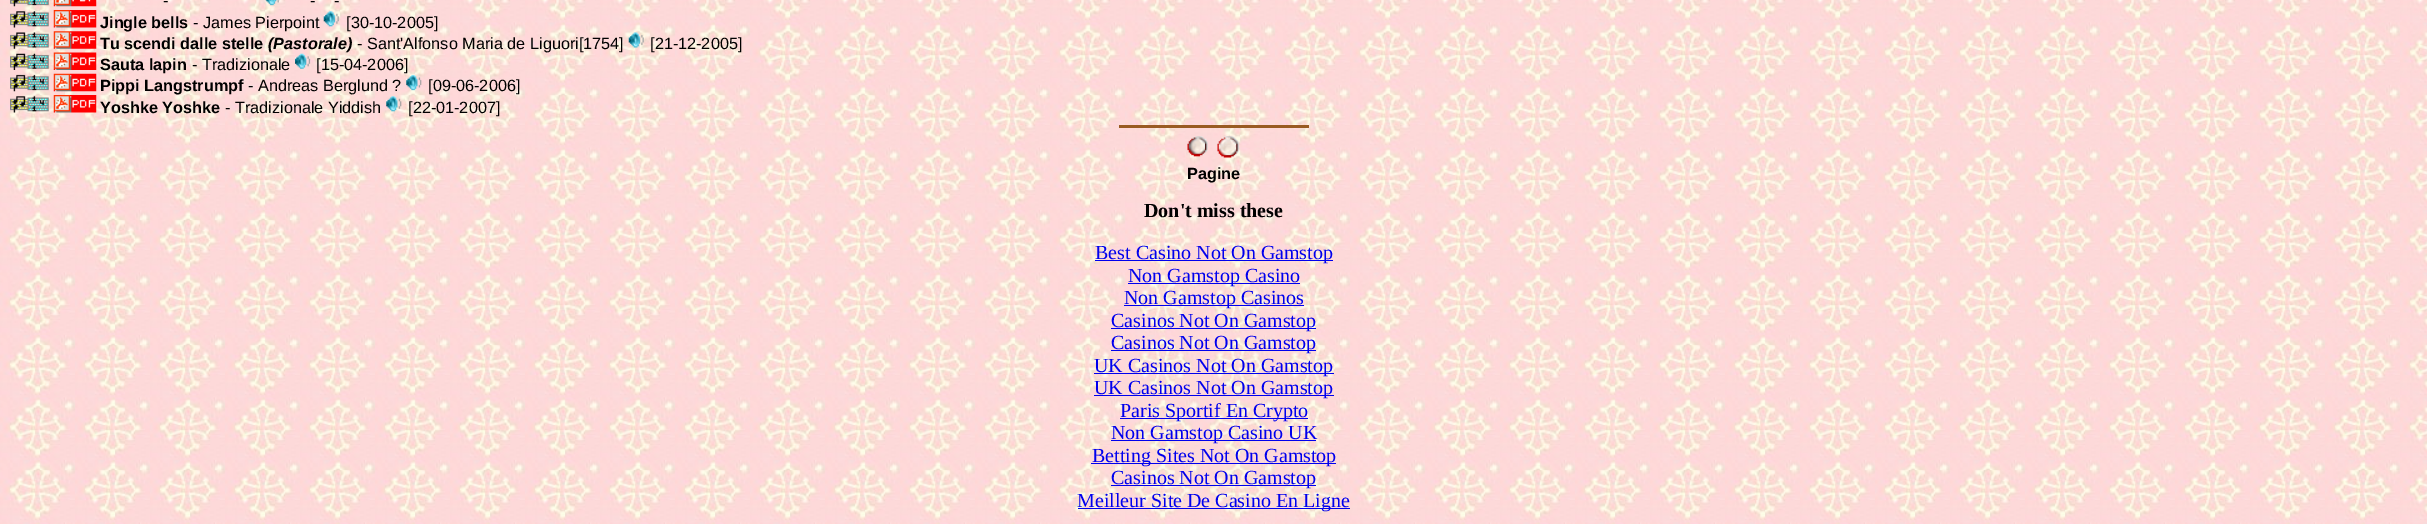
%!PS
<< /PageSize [2427 524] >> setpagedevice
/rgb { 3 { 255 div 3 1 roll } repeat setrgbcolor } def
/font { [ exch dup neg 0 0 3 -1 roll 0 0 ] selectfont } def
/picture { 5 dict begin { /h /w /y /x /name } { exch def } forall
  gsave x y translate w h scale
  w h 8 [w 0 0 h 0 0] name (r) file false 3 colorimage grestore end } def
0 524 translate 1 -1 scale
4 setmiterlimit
255 255 255 rgb
0 0 2427 524 rectfill
(img/1.rgb) 0 0 2427 524 picture
(img/2.rgb) 10 0 39 7 picture
(img/3.rgb) 53 0 44 7 picture
(img/4.rgb) 265 0 15 6 picture
(img/5.rgb) 10 11 39 17 picture
(img/6.rgb) 53 10 44 18 picture
(img/7.rgb) 323 11 16 16 picture
(img/8.rgb) 10 32 39 17 picture
(img/9.rgb) 53 31 44 18 picture
(img/10.rgb) 628 32 16 16 picture
(img/11.rgb) 10 53 39 17 picture
(img/12.rgb) 53 52 44 18 picture
(img/13.rgb) 295 53 16 16 picture
(img/14.rgb) 10 74 39 18 picture
(img/15.rgb) 53 73 44 19 picture
(img/16.rgb) 406 74 16 17 picture
(img/17.rgb) 10 96 39 17 picture
(img/18.rgb) 53 95 44 18 picture
(img/19.rgb) 386 96 16 16 picture
153 91 34 rgb
1119 125 190 3 rectfill
(img/20.rgb) 1187 136 21 21 picture
(img/21.rgb) 1217 136 22 22 picture
[
  [1095 260 238 1 0 0 238]
  [1128 283 172 1 0 0 238]
  [1124 305 180 1 0 0 238]
  [1111 328 205 1 0 0 238]
  [1111 350 205 1 0 0 238]
  [1094 373 240 1 0 0 238]
  [1094 395 240 1 0 0 238]
  [1120 418 188 1 0 0 238]
  [1111 440 205 1 0 0 238]
  [1091 463 245 1 0 0 238]
  [1111 485 205 1 0 0 238]
  [1078 508 272 1 0 0 238]
] { aload pop rgb rectfill } forall
/LiberationSans-Regular 16.25 font
0 0 0 rgb
[
  [(-) 163 6]
  [(-) 310 6]
  [(-) 334 6]
] { aload pop moveto show } forall
/LiberationSans-Bold 16.25 font
100 28 moveto (Jingle bells) show
/LiberationSans-Regular 16.25 font
193 28 moveto (- James Pierpoint) show
346 28 moveto ([30-10-2005]) show
/LiberationSans-Bold 16.25 font
100 49 moveto (Tu scendi dalle stelle) show
/LiberationSans-BoldItalic 16.25 font
268 49 moveto (\(Pastorale\)) show
/LiberationSans-Regular 16.25 font
357 49 moveto (- Sant'Alfonso Maria de Liguori[1754]) show
650 49 moveto ([21-12-2005]) show
/LiberationSans-Bold 16.25 font
100 70 moveto (Sauta lapin) show
/LiberationSans-Regular 16.25 font
192 70 moveto (- Tradizionale) show
316 70 moveto ([15-04-2006]) show
/LiberationSans-Bold 16.25 font
100 91 moveto (Pippi Langstrumpf) show
/LiberationSans-Regular 16.25 font
248 91 moveto (- Andreas Berglund ?) show
428 91 moveto ([09-06-2006]) show
/LiberationSans-Bold 16.25 font
100 113 moveto (Yoshke Yoshke) show
/LiberationSans-Regular 16.25 font
225 113 moveto (- Tradizionale Yiddish) show
408 113 moveto ([22-01-2007]) show
/LiberationSans-Bold 16.25 font
1187 179 moveto (Pagine) show
/LiberationSerif-Bold 20 font
1144 217 moveto (Don't miss these) show
/LiberationSerif-Regular 20 font
0 0 238 rgb
[
  [(Best Casino Not On Gamstop) 1095 259]
  [(Non Gamstop Casino) 1128 282]
  [(Non Gamstop Casinos) 1124 304]
  [(Casinos Not On Gamstop) 1111 327]
  [(Casinos Not On Gamstop) 1111 349]
  [(UK Casinos Not On Gamstop) 1094 372]
  [(UK Casinos Not On Gamstop) 1094 394]
  [(Paris Sportif En Crypto) 1120 417]
  [(Non Gamstop Casino UK) 1111 439]
  [(Betting Sites Not On Gamstop) 1092 462]
  [(Casinos Not On Gamstop) 1111 484]
  [(Meilleur Site De Casino En Ligne) 1077 507]
] { aload pop moveto show } forall
showpage
